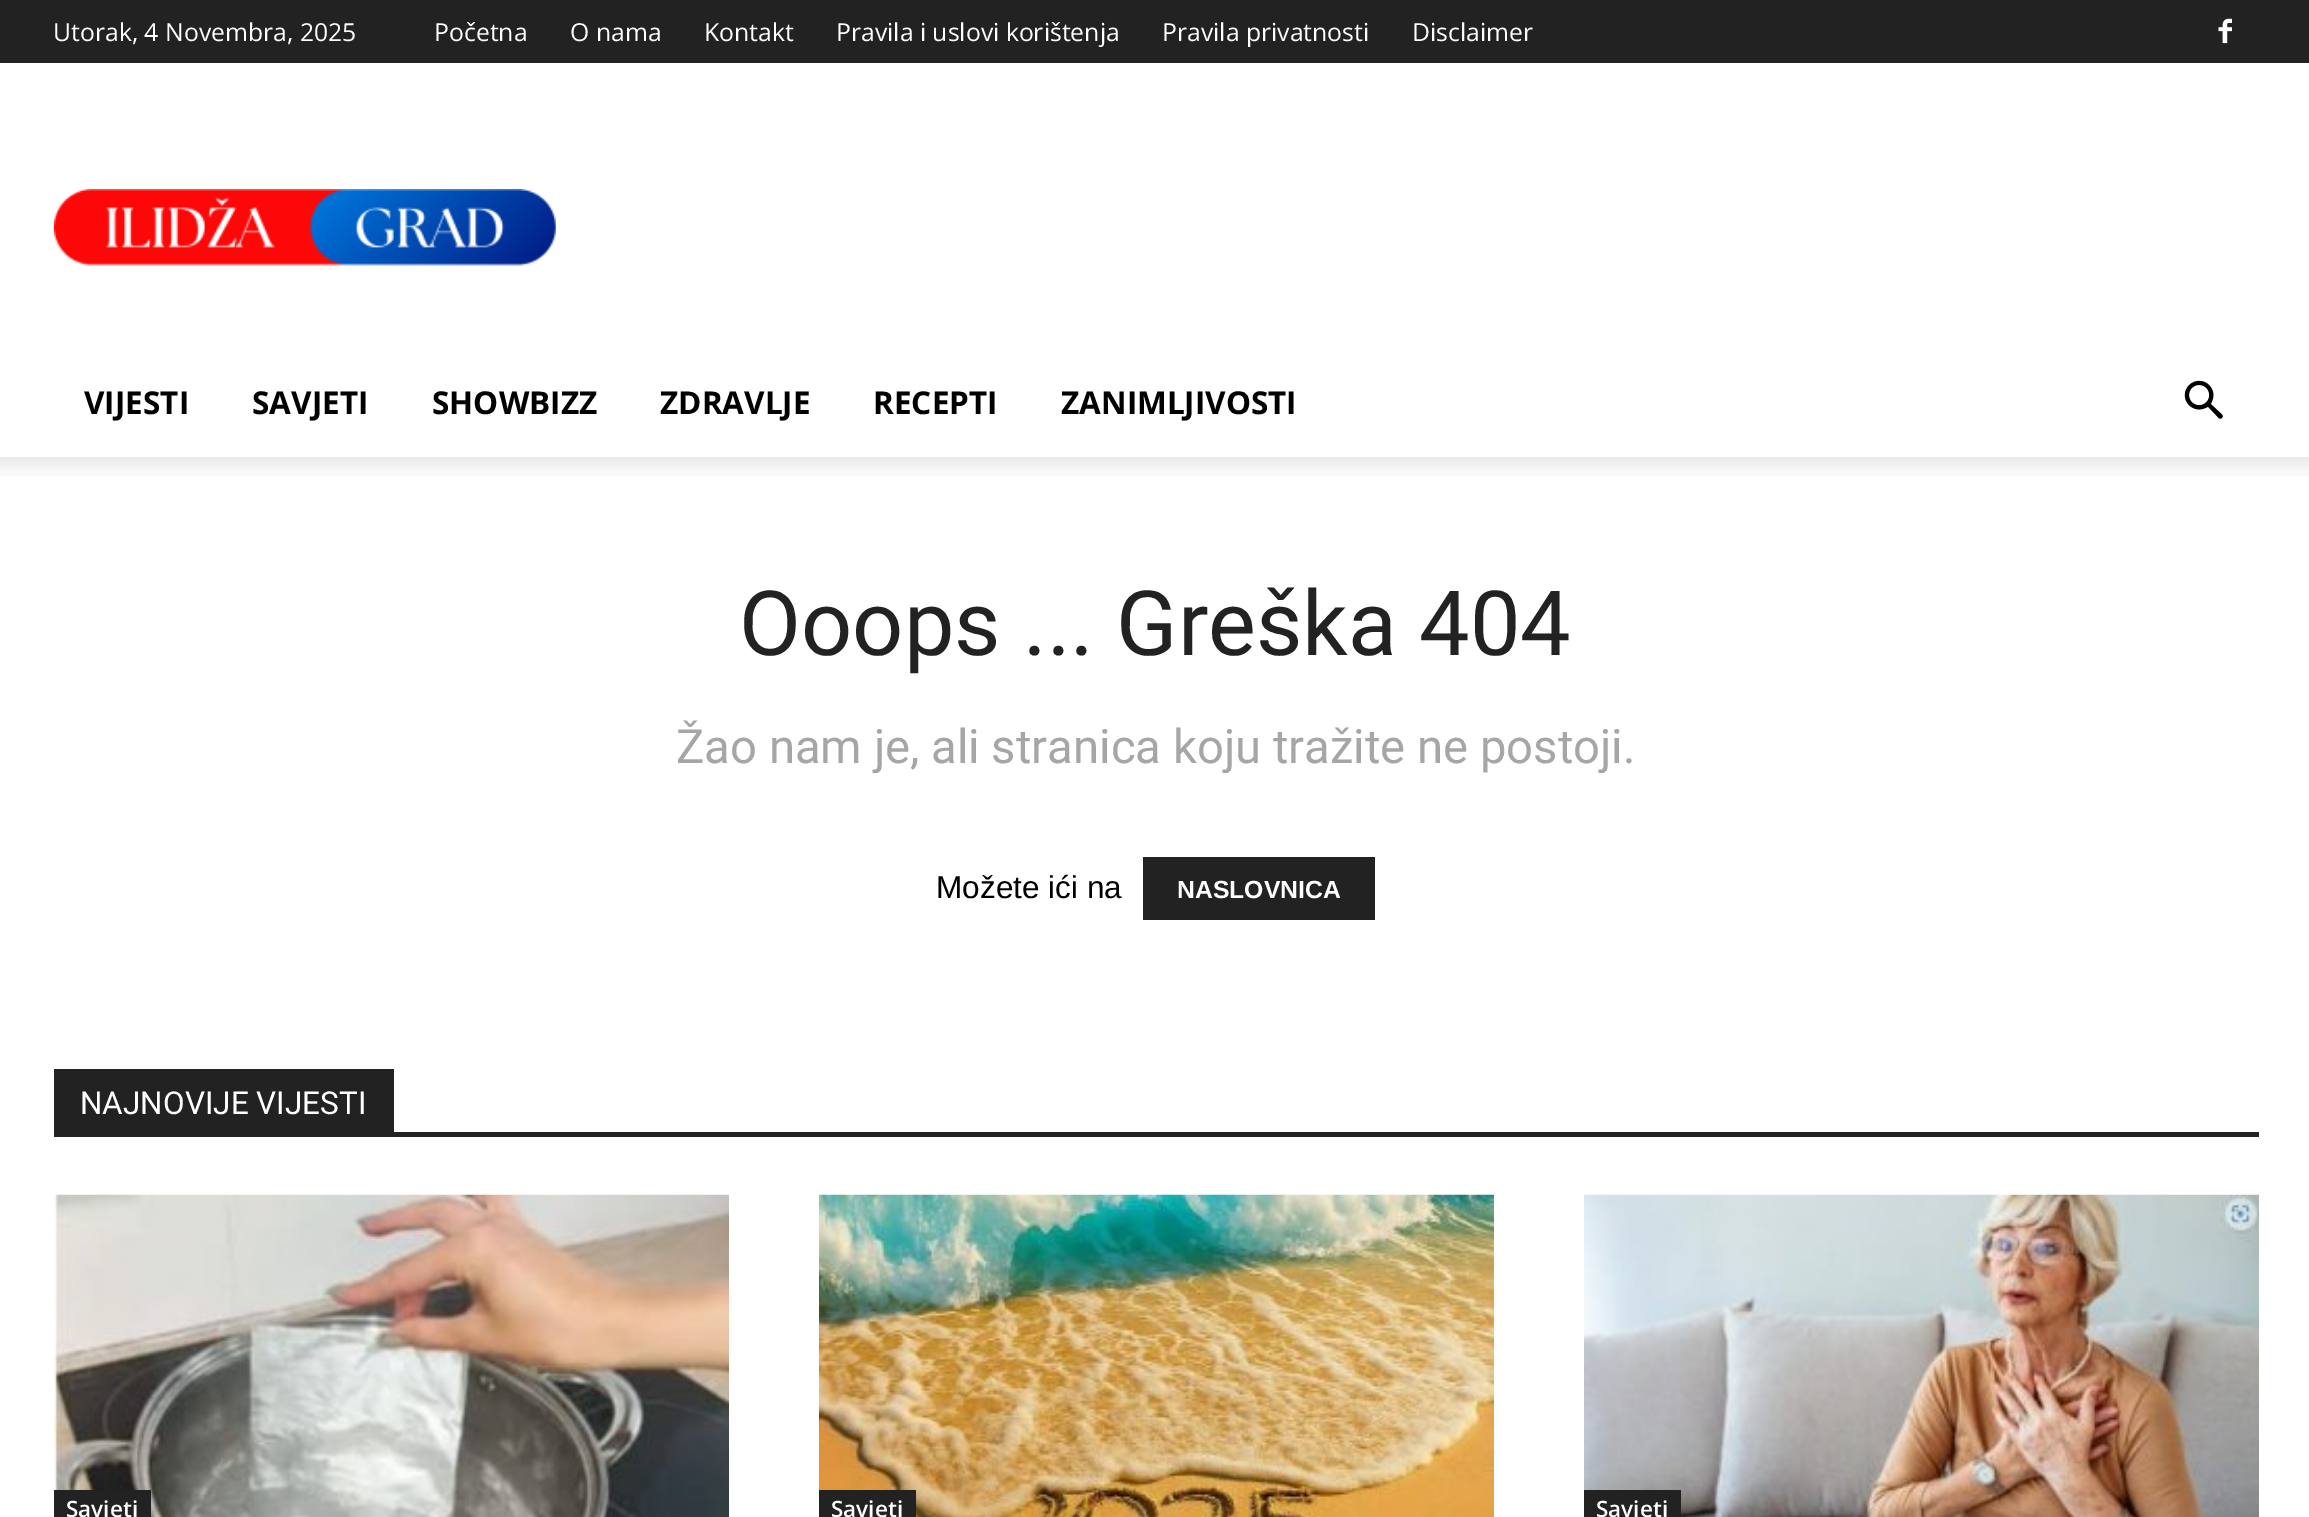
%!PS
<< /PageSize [2309 1517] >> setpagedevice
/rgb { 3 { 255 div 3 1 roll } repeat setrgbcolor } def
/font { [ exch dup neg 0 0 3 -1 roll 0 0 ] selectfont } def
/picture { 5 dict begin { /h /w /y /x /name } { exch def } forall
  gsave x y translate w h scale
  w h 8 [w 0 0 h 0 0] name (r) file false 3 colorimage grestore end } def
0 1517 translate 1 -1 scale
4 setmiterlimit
255 255 255 rgb
0 0 2309 1517 rectfill
34 34 34 rgb
0 0 2309 63 rectfill
(img/1.rgb) 2218 18 14 26 picture
(img/2.rgb) 54 189 502 77 picture
(img/3.rgb) 2184 380 39 39 picture
(img/4.rgb) 0 457 2309 19 picture
[
  [1143 857 232 63 34 34 34]
  [54 1132 2205 5 34 34 34]
  [54 1069 340 63 34 34 34]
] { aload pop rgb rectfill } forall
(img/5.rgb) 54 1194 675 323 picture
54 1490 97 27 rectfill
(img/6.rgb) 819 1194 675 323 picture
819 1490 97 27 rectfill
(img/7.rgb) 1584 1194 675 323 picture
1584 1490 97 27 rectfill
/OpenSans-Regular 24.75 font
255 255 255 rgb
[
  [(Utorak, 4 Novembra, 2025) 53 41]
  [(Početna) 434 41]
  [(O nama) 570 41]
  [(Kontakt) 704 41]
  [(Pravila i uslovi korištenja) 836 41]
  [(Pravila privatnosti) 1162 41]
  [(Disclaimer) 1412 41]
] { aload pop moveto show } forall
/OpenSans-Bold 31.5 font
0 0 0 rgb
[
  [(VIJESTI) 84 414]
  [(SAVJETI) 252 414]
  [(SHOWBIZZ) 432 414]
  [(ZDRAVLJE) 660 414]
  [(RECEPTI) 873 414]
  [(ZANIMLJIVOSTI) 1061 414]
] { aload pop moveto show } forall
/Roboto-Regular 90 font
34 34 34 rgb
739 655 moveto (Ooops ... Greška 404) show
/Roboto-Regular 47.25 font
166 166 166 rgb
676 763 moveto (Žao nam je, ali stranica koju tražite ne postoji.) show
/LiberationSans-Regular 31.5 font
0 0 0 rgb
936 898 moveto (Možete ići na) show
/LiberationSans-Bold 24.75 font
255 255 255 rgb
1177 898 moveto (NASLOVNICA) show
/Roboto-Regular 31.5 font
80 1114 moveto (NAJNOVIJE VIJESTI) show
/OpenSans-SemiBold 22.5 font
[
  [(Savjeti) 66 1517]
  [(Savjeti) 831 1517]
  [(Savjeti) 1596 1517]
] { aload pop moveto show } forall
showpage
